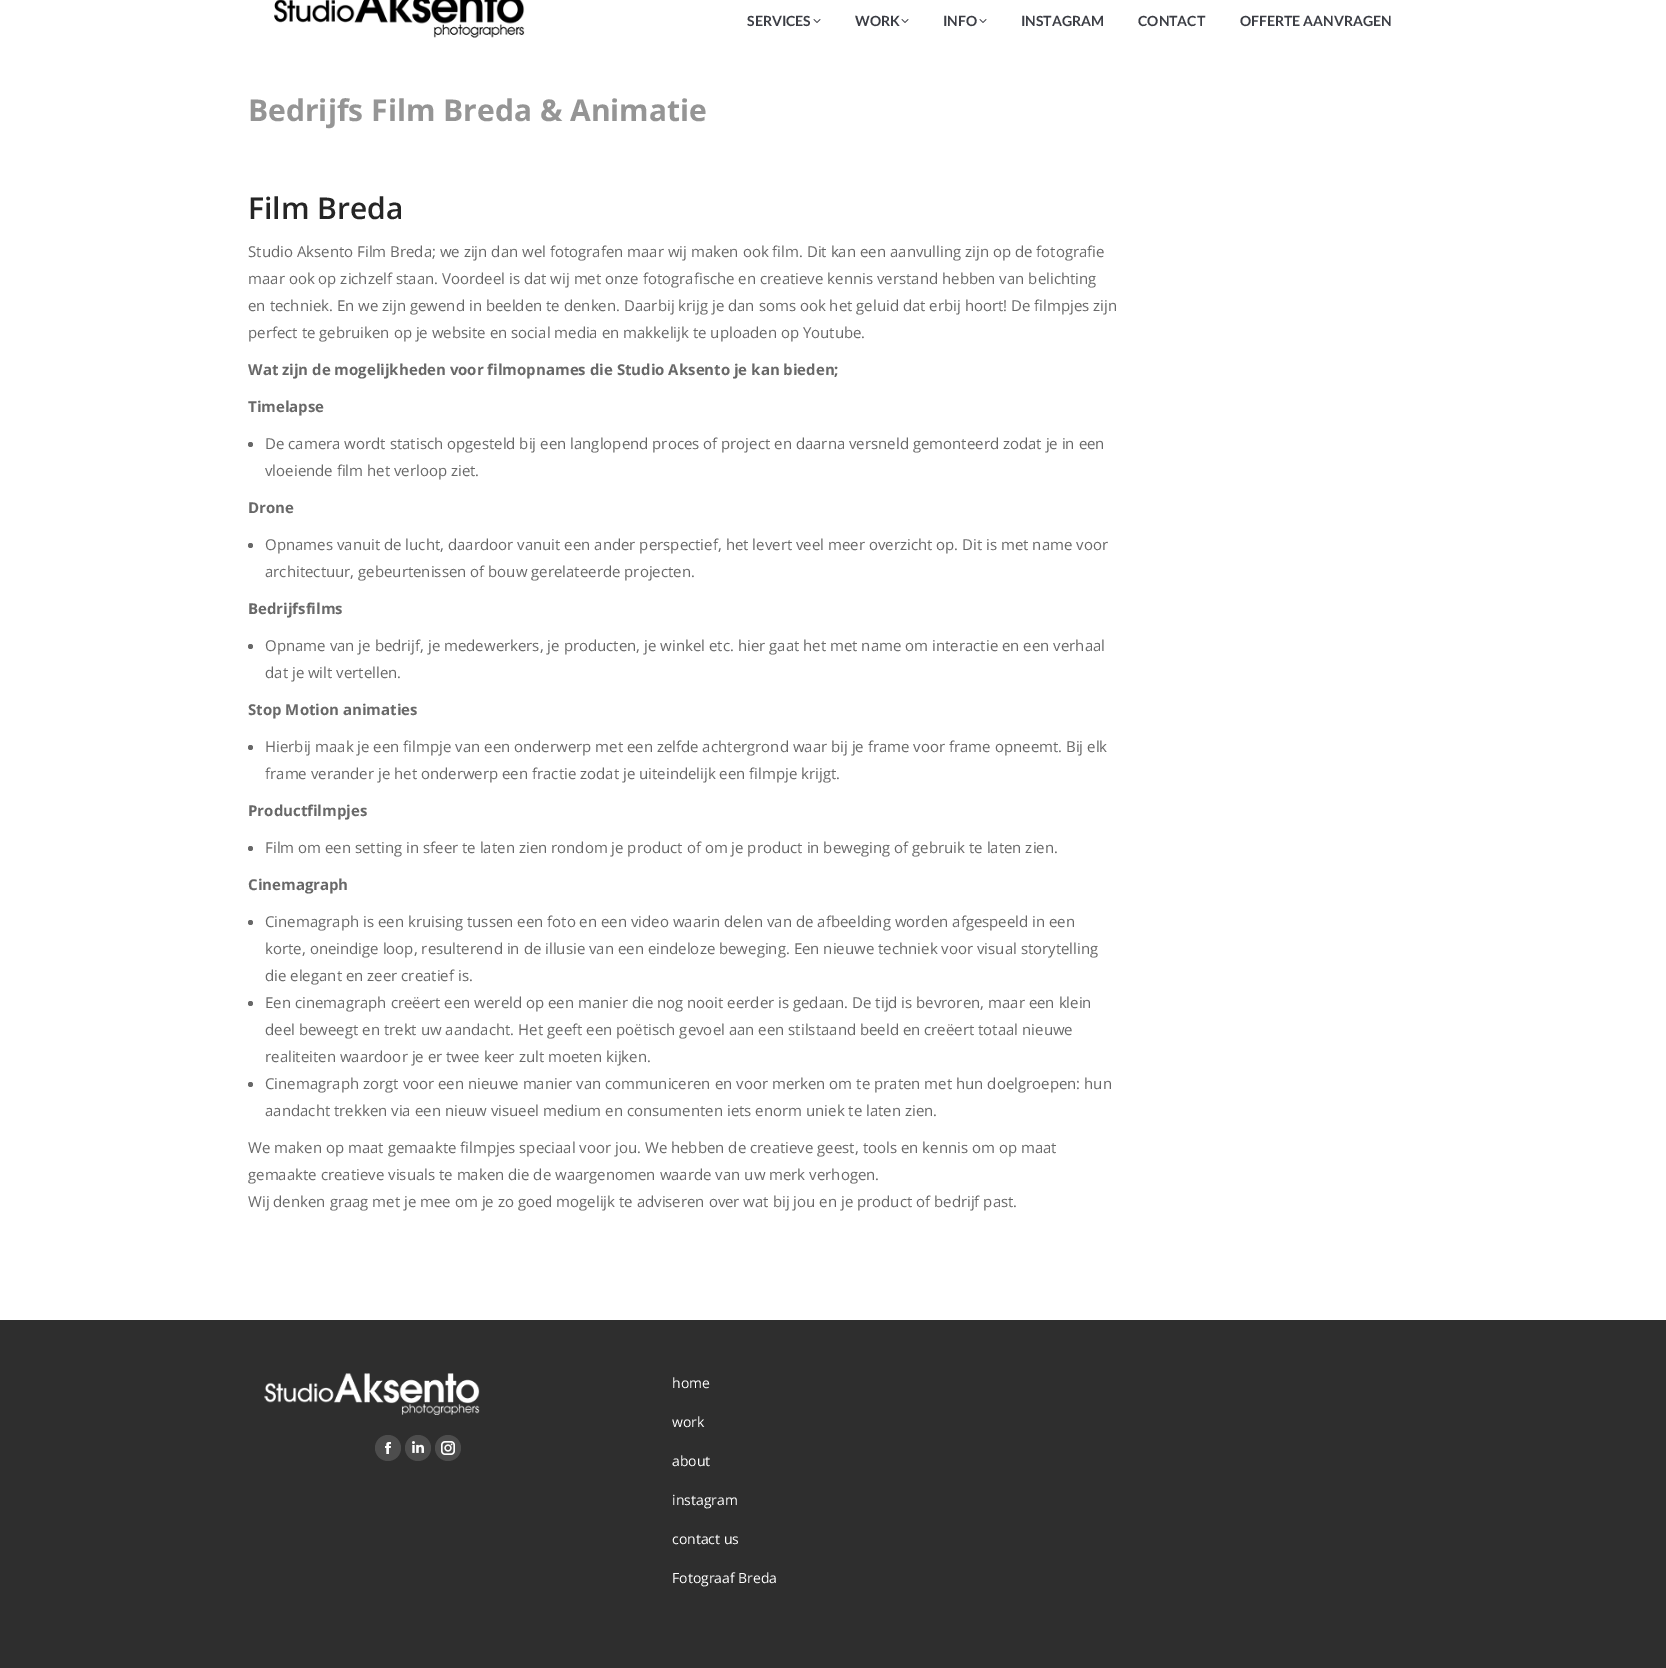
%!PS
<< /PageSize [1666 1668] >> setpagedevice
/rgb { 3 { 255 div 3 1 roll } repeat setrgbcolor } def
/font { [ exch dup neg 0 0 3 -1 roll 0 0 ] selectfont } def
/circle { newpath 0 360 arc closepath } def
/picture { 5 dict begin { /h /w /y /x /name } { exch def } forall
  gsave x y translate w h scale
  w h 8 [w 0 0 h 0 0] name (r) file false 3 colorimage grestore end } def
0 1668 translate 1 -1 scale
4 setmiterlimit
255 255 255 rgb
0 0 1666 1668 rectfill
(img/1.rgb) 274 0 251 38 picture
(img/2.rgb) 813 19 8 4 picture
(img/2.rgb) 901 19 8 4 picture
(img/2.rgb) 979 19 8 4 picture
104 104 104 rgb
250.5 444.5 2.5 circle fill
250.5 545.5 2.5 circle fill
250.5 646.5 2.5 circle fill
250.5 747.5 2.5 circle fill
250.5 848.5 2.5 circle fill
250.5 922.5 2.5 circle fill
250.5 1003.5 2.5 circle fill
250.5 1084.5 2.5 circle fill
46 46 46 rgb
0 1320 1666 348 rectfill
(img/3.rgb) 264 1373 216 42 picture
77 77 77 rgb
388 1448 13 circle fill
(img/4.rgb) 385 1442 6 12 picture
418 1448 13 circle fill
(img/5.rgb) 412 1441 12 12 picture
448 1448 13 circle fill
(img/6.rgb) 441 1441 14 14 picture
/Lato-Bold 14 font
60 62 69 rgb
[
  [(SERVICES) 747 26]
  [(WORK) 855 26]
  [(INFO) 943 26]
  [(INSTAGRAM) 1021 26]
  [(CONTACT) 1138 26]
  [(OFFERTE AANVRAGEN) 1240 26]
] { aload pop moveto show } forall
/OpenSans-Bold 30 font
149 149 149 rgb
248 121 moveto (Bedrijfs Film Breda & Animatie) show
/OpenSans-SemiBold 30 font
37 37 37 rgb
248 219 moveto (Film Breda) show
/OpenSans-Regular 15 font
104 104 104 rgb
[
  [(Studio Aksento Film Breda; we zijn dan wel fotografen maar wij maken ook film. Dit kan een aanvulling zijn op de fotografie) 248 257]
  [(maar ook op zichzelf staan. Voordeel is dat wij met onze fotografische en creatieve kennis verstand hebben van belichting) 248 284]
  [(en techniek. En we zijn gewend in beelden te denken. Daarbij krijg je dan soms ook het geluid dat erbij hoort! De filmpjes zijn) 248 311]
  [(perfect te gebruiken op je website en social media en makkelijk te uploaden op Youtube.) 248 338]
] { aload pop moveto show } forall
/OpenSans-Bold 15 font
248 375 moveto (Wat zijn de mogelijkheden voor filmopnames die Studio Aksento je kan bieden;) show
248 412 moveto (Timelapse) show
/OpenSans-Regular 15 font
265 449 moveto (De camera wordt statisch opgesteld bij een langlopend proces of project en daarna versneld gemonteerd zodat je in een) show
265 476 moveto (vloeiende film het verloop ziet.) show
/OpenSans-Bold 15 font
248 513 moveto (Drone) show
/OpenSans-Regular 15 font
265 550 moveto (Opnames vanuit de lucht, daardoor vanuit een ander perspectief, het levert veel meer overzicht op. Dit is met name voor) show
265 577 moveto (architectuur, gebeurtenissen of bouw gerelateerde projecten.) show
/OpenSans-Bold 15 font
248 614 moveto (Bedrijfsfilms) show
/OpenSans-Regular 15 font
265 651 moveto (Opname van je bedrijf, je medewerkers, je producten, je winkel etc. hier gaat het met name om interactie en een verhaal) show
265 678 moveto (dat je wilt vertellen.) show
/OpenSans-Bold 15 font
248 715 moveto (Stop Motion animaties) show
/OpenSans-Regular 15 font
265 752 moveto (Hierbij maak je een filmpje van een onderwerp met een zelfde achtergrond waar bij je frame voor frame opneemt. Bij elk) show
265 779 moveto (frame verander je het onderwerp een fractie zodat je uiteindelijk een filmpje krijgt.) show
/OpenSans-Bold 15 font
248 816 moveto (Productfilmpjes) show
/OpenSans-Regular 15 font
265 853 moveto (Film om een setting in sfeer te laten zien rondom je product of om je product in beweging of gebruik te laten zien.) show
/OpenSans-Bold 15 font
248 890 moveto (Cinemagraph) show
/OpenSans-Regular 15 font
[
  [(Cinemagraph is een kruising tussen een foto en een video waarin delen van de afbeelding worden afgespeeld in een) 265 927]
  [(korte, oneindige loop, resulterend in de illusie van een eindeloze beweging. Een nieuwe techniek voor visual storytelling) 265 954]
  [(die elegant en zeer creatief is.) 265 981]
  [(Een cinemagraph creëert een wereld op een manier die nog nooit eerder is gedaan. De tijd is bevroren, maar een klein) 265 1008]
  [(deel beweegt en trekt uw aandacht. Het geeft een poëtisch gevoel aan een stilstaand beeld en creëert totaal nieuwe) 265 1035]
  [(realiteiten waardoor je er twee keer zult moeten kijken.) 265 1062]
  [(Cinemagraph zorgt voor een nieuwe manier van communiceren en voor merken om te praten met hun doelgroepen: hun) 265 1089]
  [(aandacht trekken via een nieuw visueel medium en consumenten iets enorm uniek te laten zien.) 265 1116]
  [(We maken op maat gemaakte filmpjes speciaal voor jou. We hebben de creatieve geest, tools en kennis om op maat) 248 1153]
  [(gemaakte creatieve visuals te maken die de waargenomen waarde van uw merk verhogen.) 248 1180]
  [(Wij denken graag met je mee om je zo goed mogelijk te adviseren over wat bij jou en je product of bedrijf past.) 248 1207]
] { aload pop moveto show } forall
/OpenSans-Regular 14 font
255 255 255 rgb
[
  [(home) 672 1388]
  [(work) 672 1427]
  [(about) 672 1466]
  [(instagram) 672 1505]
  [(contact us) 672 1544]
  [(Fotograaf Breda) 672 1583]
] { aload pop moveto show } forall
showpage
